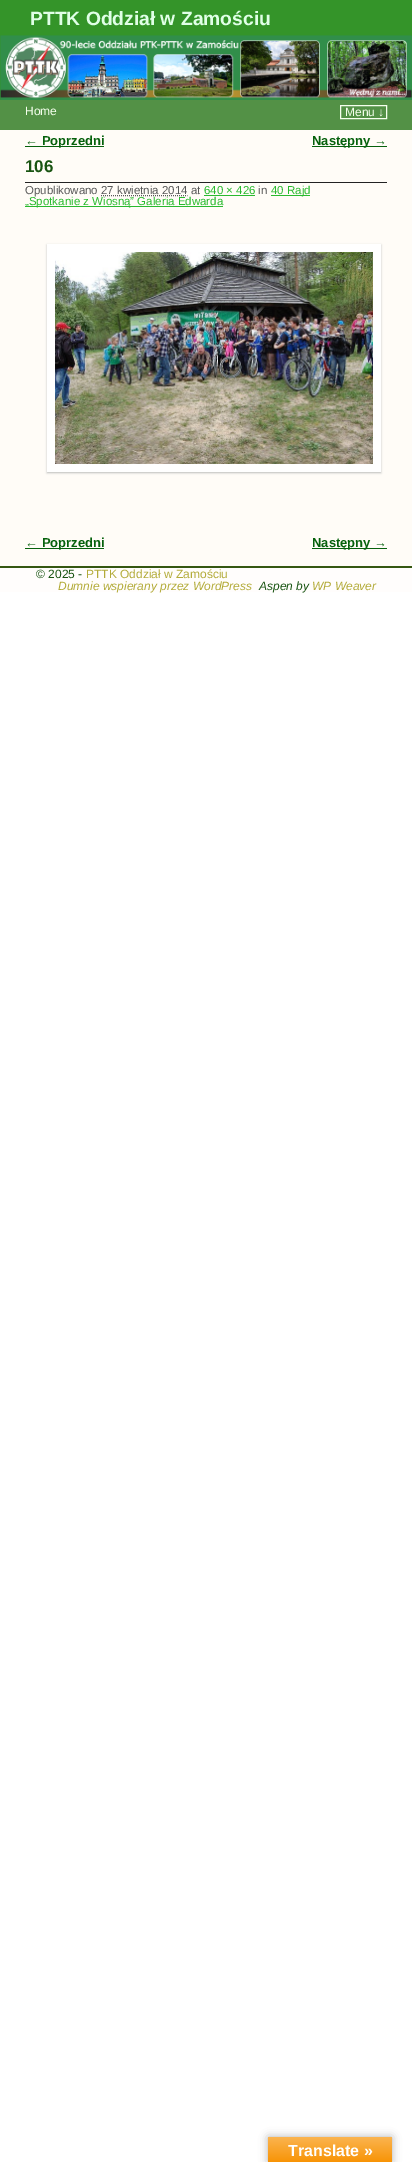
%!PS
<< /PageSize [412 2162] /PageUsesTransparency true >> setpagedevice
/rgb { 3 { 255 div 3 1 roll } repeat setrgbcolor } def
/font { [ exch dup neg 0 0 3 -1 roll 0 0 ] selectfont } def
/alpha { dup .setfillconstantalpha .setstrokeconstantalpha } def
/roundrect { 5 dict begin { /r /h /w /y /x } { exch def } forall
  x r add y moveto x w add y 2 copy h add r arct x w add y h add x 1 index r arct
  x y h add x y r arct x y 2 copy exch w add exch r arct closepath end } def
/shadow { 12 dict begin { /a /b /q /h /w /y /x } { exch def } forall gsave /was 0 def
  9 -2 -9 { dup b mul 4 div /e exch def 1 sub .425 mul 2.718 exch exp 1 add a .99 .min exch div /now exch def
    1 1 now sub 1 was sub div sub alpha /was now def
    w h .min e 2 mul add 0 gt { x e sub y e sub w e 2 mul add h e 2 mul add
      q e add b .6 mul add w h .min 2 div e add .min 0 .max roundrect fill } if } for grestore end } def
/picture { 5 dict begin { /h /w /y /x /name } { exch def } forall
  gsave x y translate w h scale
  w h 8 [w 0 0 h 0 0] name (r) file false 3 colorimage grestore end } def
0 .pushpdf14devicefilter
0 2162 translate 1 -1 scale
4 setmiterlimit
255 255 255 rgb
0 0 412 2162 rectfill
255 252 247 rgb
0 130 412 436 rectfill
52 148 41 rgb
0 0 412 100 rectfill
(img/1.rgb) 0 35 412 65 picture
83 145 70 rgb
0 100 412 30 rectfill
245 255 237 rgb
340.5 105.5 46 13 rectstroke
[
  [25 146 79 1 6 97 12]
  [312 146 75 1 6 97 12]
  [25 182 362 1 34 34 34]
  [204 195 51 1 41 186 46]
  [271 195 39 1 41 186 46]
] { aload pop rgb rectfill } forall
87 87 87 rgb
[1 1] 0 setdash
101 195.5 moveto 187.5 195.5 lineto stroke
41 186 46 rgb
25 206 198 1 rectfill
187 187 187 rgb
47 245 334 228 0 1 1 shadow
255 255 255 rgb
47 244 334 228 rectfill
(img/2.rgb) 55 252 318 212 picture
[
  [25 548 79 1 6 97 12]
  [312 548 75 1 6 97 12]
  [0 568 412 24 255 253 252]
  [0 566 412 2 53 87 17]
] { aload pop rgb rectfill } forall
0 0 0 rgb
268 2137 124 25 0 4.5 0.3 shadow
gsave 268 2137 moveto 392 2137 lineto 392 2162 lineto 268 2162 lineto closepath clip newpath
<< /ShadingType 2 /ColorSpace /DeviceRGB /Coords [330 2137 330 2162] /Extend [true true] /Function << /FunctionType 2 /Domain [0 1] /C0 [0.984 0.706 0.314] /C1 [0.973 0.58 0.024] /N 1 >> >> shfill grestore
/LiberationSans-Bold 19.25 font
224 255 231 rgb
30 25 moveto (PTTK Oddział w Zamościu) show
/LiberationSans-Regular 12 font
245 255 237 rgb
25 115 moveto (Home) show
345 116 moveto (Menu ↓) show
/LiberationSans-Bold 13 font
6 97 12 rgb
25 145 moveto (← Poprzedni) show
312 145 moveto (Następny →) show
/LiberationSans-Bold 17 font
25 84 18 rgb
25 172 moveto (106) show
/LiberationSans-Regular 11.5 font
87 87 87 rgb
25 194 moveto (Opublikowano 27 kwietnia 2014 at) show
41 186 46 rgb
204 194 moveto (640 × 426) show
87 87 87 rgb
258 194 moveto (in) show
41 186 46 rgb
271 194 moveto (40 Rajd) show
25 205 moveto („Spotkanie z Wiosną” Galeria Edwarda) show
/LiberationSans-Bold 13 font
6 97 12 rgb
25 547 moveto (← Poprzedni) show
312 547 moveto (Następny →) show
/LiberationSans-Regular 12 font
25 84 18 rgb
36 578 moveto (© 2025 -) show
179 171 57 rgb
86 578 moveto (PTTK Oddział w Zamościu) show
/LiberationSans-Italic 12 font
58 590 moveto (Dumnie wspierany przez WordPress) show
25 84 18 rgb
259 590 moveto (Aspen by) show
179 171 57 rgb
312 590 moveto (WP Weaver) show
/LiberationSans-Bold 16 font
255 255 255 rgb
288 2156 moveto (Translate ») show
.poppdf14devicefilter showpage
